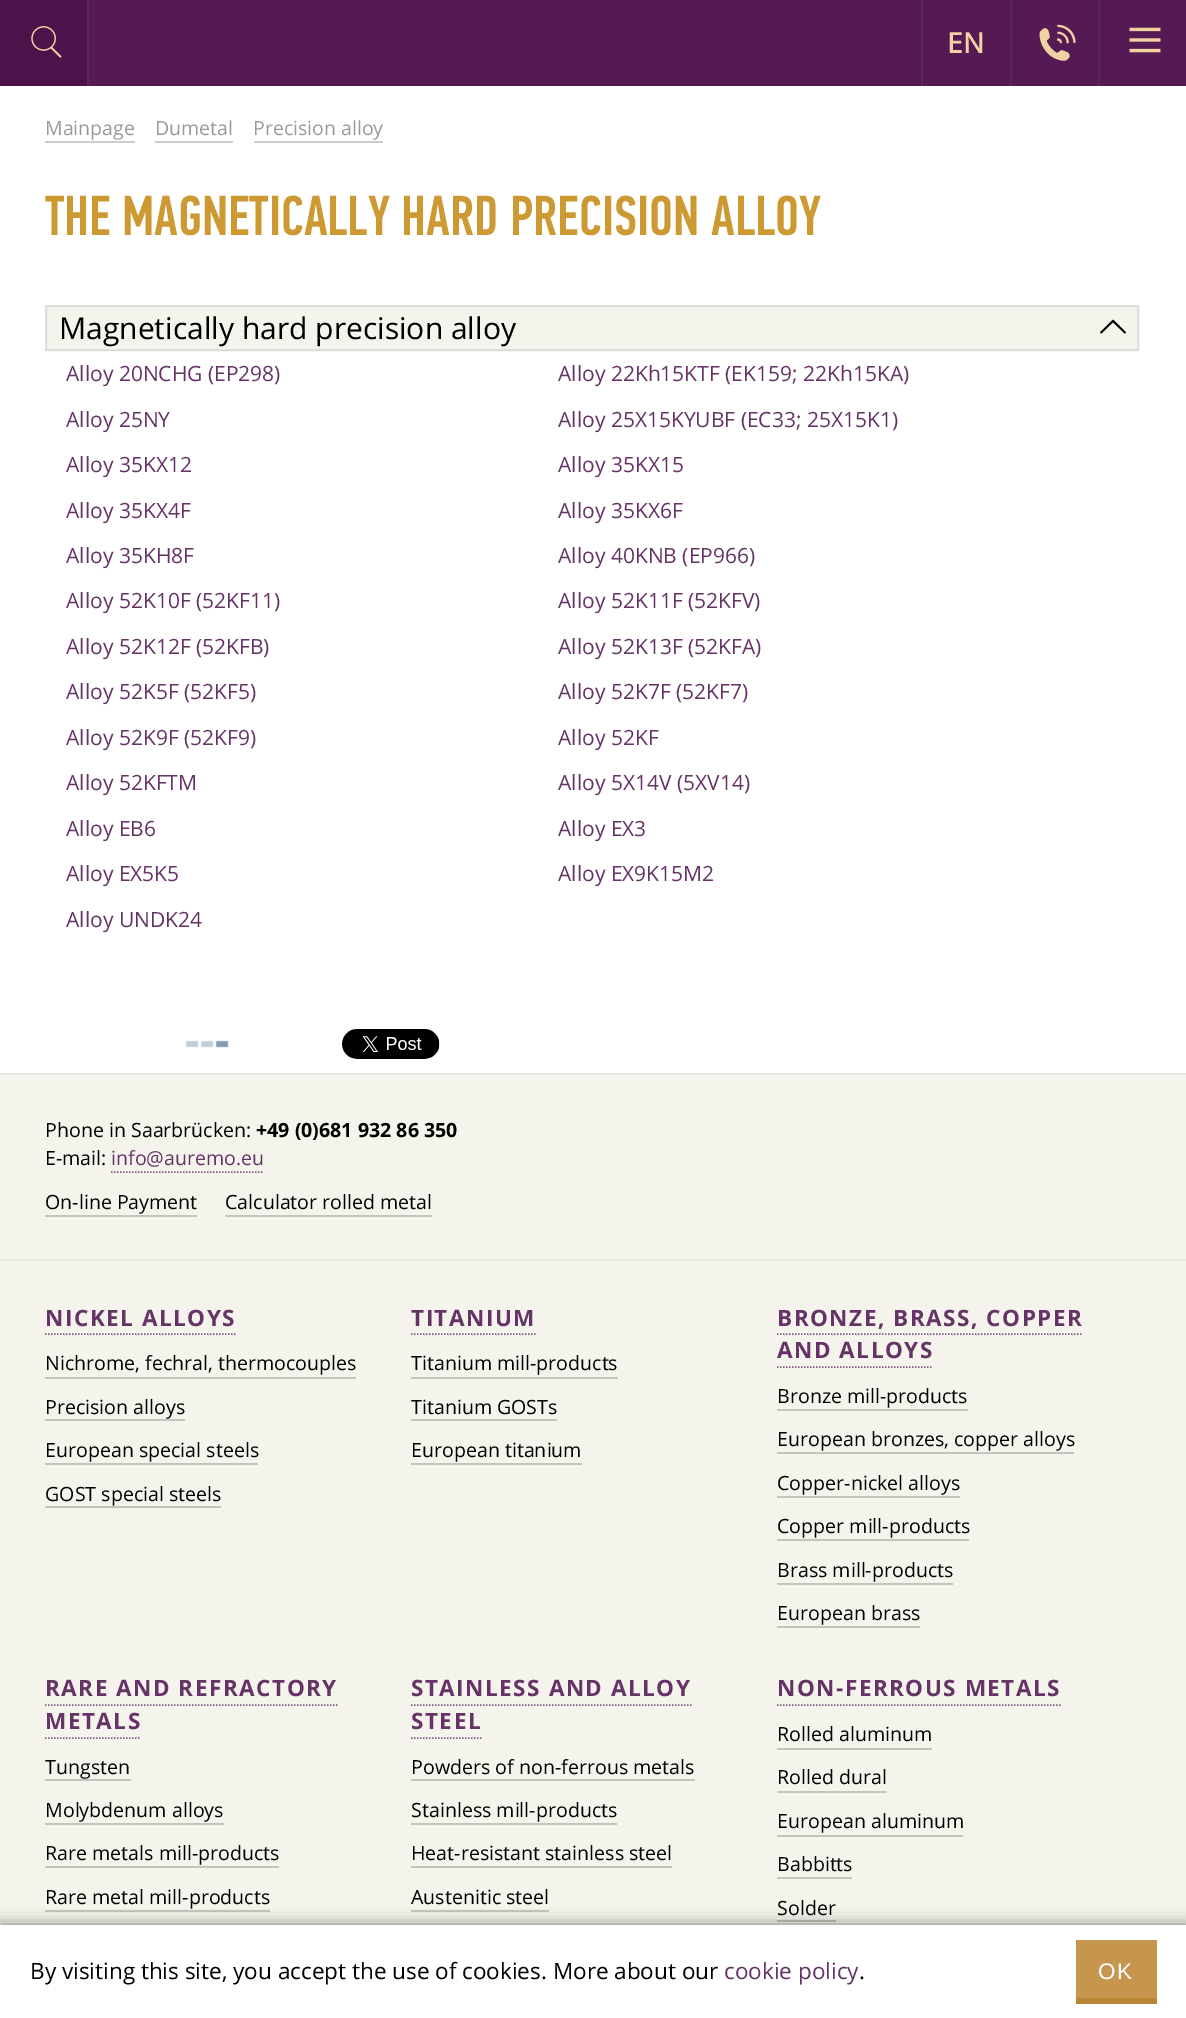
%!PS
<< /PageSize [1186 2018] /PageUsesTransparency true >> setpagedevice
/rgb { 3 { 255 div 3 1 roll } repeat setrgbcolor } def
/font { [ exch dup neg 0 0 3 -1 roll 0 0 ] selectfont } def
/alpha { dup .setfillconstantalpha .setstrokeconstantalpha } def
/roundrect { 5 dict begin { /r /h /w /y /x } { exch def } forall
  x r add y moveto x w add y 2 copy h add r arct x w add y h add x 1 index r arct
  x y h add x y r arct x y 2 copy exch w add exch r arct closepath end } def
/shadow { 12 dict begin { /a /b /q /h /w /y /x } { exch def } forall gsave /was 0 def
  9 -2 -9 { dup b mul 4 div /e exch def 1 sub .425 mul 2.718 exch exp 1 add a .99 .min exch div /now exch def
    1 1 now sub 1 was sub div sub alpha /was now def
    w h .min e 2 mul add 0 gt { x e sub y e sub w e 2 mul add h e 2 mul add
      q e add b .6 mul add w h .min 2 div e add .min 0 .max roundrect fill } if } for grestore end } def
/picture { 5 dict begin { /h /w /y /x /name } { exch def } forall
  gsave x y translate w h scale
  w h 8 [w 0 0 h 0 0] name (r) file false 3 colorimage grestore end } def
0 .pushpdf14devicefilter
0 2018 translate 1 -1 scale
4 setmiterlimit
245 244 236 rgb
0 0 1186 2018 rectfill
[
  [89 0 1097 86 85 25 84]
  [0 0 87 86 75 19 74]
  [87 0 2 86 94 37 93]
] { aload pop rgb rectfill } forall
(img/1.rgb) 31 26 31 32 picture
921 0 2 86 rectfill
1010 0 2 86 rectfill
(img/2.rgb) 1039 24 37 37 picture
1098 0 2 86 rectfill
(img/3.rgb) 1129 27 32 26 picture
[
  [0 86 1186 987 255 255 255]
  [45 141 90 2 204 204 204]
  [155 141 78 2 204 204 204]
  [254 141 129 2 204 204 204]
] { aload pop rgb rectfill } forall
245 244 236 rgb
46 306 moveto 1138 306 lineto 1138 350 lineto 46 350 lineto closepath gsave fill grestore
222 221 215 rgb
2 setlinewidth
stroke
(img/4.rgb) 1100 319 26 15 picture
(img/5.rgb) 185 1040 44 8 picture
(img/6.rgb) 342 1029 98 30 picture
233 232 224 rgb
0 1073 1186 2 rectfill
131 90 129 rgb
1.5 setlinewidth
[1.5 1.5] 0 setdash
111 1172 moveto 264 1172 lineto stroke
[
  [45 1215 152 2 196 195 189]
  [225 1215 207 2 196 195 189]
  [0 1259 1186 2 233 232 224]
] { aload pop rgb rectfill } forall
131 90 129 rgb
45 1334 moveto 235.5 1334 lineto stroke
[
  [45 1377 311 2 196 195 189]
  [45 1419 140 2 196 195 189]
  [45 1463 213 2 196 195 189]
  [45 1506 176 2 196 195 189]
] { aload pop rgb rectfill } forall
131 90 129 rgb
411 1334 moveto 535.5 1334 lineto stroke
[
  [411 1377 207 2 196 195 189]
  [411 1419 146 2 196 195 189]
  [411 1463 171 2 196 195 189]
] { aload pop rgb rectfill } forall
131 90 129 rgb
777 1334 moveto 1083 1334 lineto stroke
777 1367 moveto 933 1367 lineto stroke
[
  [777 1409 191 2 196 195 189]
  [777 1452 297 2 196 195 189]
  [777 1496 183 2 196 195 189]
  [777 1539 192 2 196 195 189]
  [777 1583 176 2 196 195 189]
  [777 1626 143 2 196 195 189]
] { aload pop rgb rectfill } forall
131 90 129 rgb
45 1705 moveto 337.5 1705 lineto stroke
45 1738 moveto 141 1738 lineto stroke
[
  [45 1779 86 2 196 195 189]
  [45 1823 179 2 196 195 189]
  [45 1866 234 2 196 195 189]
  [45 1910 225 2 196 195 189]
] { aload pop rgb rectfill } forall
131 90 129 rgb
411 1705 moveto 691.5 1705 lineto stroke
411 1738 moveto 481.5 1738 lineto stroke
[
  [411 1779 284 2 196 195 189]
  [411 1823 206 2 196 195 189]
  [411 1866 261 2 196 195 189]
  [411 1910 138 2 196 195 189]
] { aload pop rgb rectfill } forall
131 90 129 rgb
777 1705 moveto 1060.5 1705 lineto stroke
[
  [777 1748 155 2 196 195 189]
  [777 1791 110 2 196 195 189]
  [777 1835 186 2 196 195 189]
  [777 1877 75 2 196 195 189]
  [777 1920 59 2 196 195 189]
] { aload pop rgb rectfill } forall
0 0 0 rgb
0 1925 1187 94 0 7.5 0.5 shadow
[
  [0 1925 1186 93 255 255 255]
  [1076 1940 81 58 198 149 78]
  [1076 1998 81 6 186 132 55]
] { aload pop rgb rectfill } forall
/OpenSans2-Bold 28 font
241 210 163 rgb
947 53 moveto (EN) show
/OpenSans-Regular 19.5 font
153 153 153 rgb
[
  [(Mainpage) 45 135]
  [(Dumetal) 155 135]
  [(Precision alloy) 253 135]
] { aload pop moveto show } forall
/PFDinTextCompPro-Medium 56.25 font
204 153 51 rgb
45 235 moveto (THE MAGNETICALLY HARD PRECISION ALLOY) show
/OpenSans-Regular 30 font
0 0 0 rgb
59 339 moveto (Magnetically hard precision alloy) show
/OpenSans-Regular 21 font
102 51 102 rgb
[
  [(Alloy 20NCHG \(EP298\)) 66 381]
  [(Alloy 22Kh15KTF \(EK159; 22Kh15KA\)) 558 381]
  [(Alloy 25NY) 66 427]
  [(Alloy 25X15KYUBF \(EC33; 25X15K1\)) 558 427]
  [(Alloy 35KX12) 66 472]
  [(Alloy 35KX15) 558 472]
  [(Alloy 35KX4F) 66 518]
  [(Alloy 35KX6F) 558 518]
  [(Alloy 35KH8F) 66 563]
  [(Alloy 40KNB \(EP966\)) 558 563]
  [(Alloy 52K10F \(52KF11\)) 66 608]
  [(Alloy 52K11F \(52KFV\)) 558 608]
  [(Alloy 52K12F \(52KFB\)) 66 654]
  [(Alloy 52K13F \(52KFA\)) 558 654]
  [(Alloy 52K5F \(52KF5\)) 66 699]
  [(Alloy 52K7F \(52KF7\)) 558 699]
  [(Alloy 52K9F \(52KF9\)) 66 745]
  [(Alloy 52KF) 558 745]
  [(Alloy 52KFTM) 66 790]
  [(Alloy 5X14V \(5XV14\)) 558 790]
  [(Alloy EB6) 66 836]
  [(Alloy EX3) 558 836]
  [(Alloy EX5K5) 66 881]
  [(Alloy EX9K15M2) 558 881]
  [(Alloy UNDK24) 66 927]
] { aload pop moveto show } forall
/OpenSans-Regular 19.6 font
0 0 0 rgb
45 1137 moveto (Phone in Saarbrücken:) show
/OpenSans-Bold 19.6 font
256 1137 moveto (+49 \(0\)681 932 86 350) show
/OpenSans-Regular 19.6 font
45 1165 moveto (E-mail:) show
102 51 102 rgb
111 1165 moveto (info@auremo.eu) show
0 0 0 rgb
45 1209 moveto (On-line Payment) show
225 1209 moveto (Calculator rolled metal) show
/OpenSans-Bold 22.5 font
102 51 102 rgb
45 1326 moveto 1.5 0 (NICKEL ALLOYS) ashow
/OpenSans-Regular 19.6 font
0 0 0 rgb
[
  [(Nichrome, fechral, thermocouples) 45 1370]
  [(Precision alloys) 45 1414]
  [(European special steels) 45 1457]
  [(GOST special steels) 45 1501]
] { aload pop moveto show } forall
/OpenSans-Bold 22.5 font
102 51 102 rgb
411 1326 moveto 1.5 0 (TITANIUM) ashow
/OpenSans-Regular 19.6 font
0 0 0 rgb
[
  [(Titanium mill-products) 411 1370]
  [(Titanium GOSTs) 411 1414]
  [(European titanium) 411 1457]
] { aload pop moveto show } forall
/OpenSans-Bold 22.5 font
102 51 102 rgb
777 1326 moveto 1.5 0 (BRONZE, BRASS, COPPER) ashow
777 1358 moveto 1.5 0 (AND ALLOYS) ashow
/OpenSans-Regular 19.6 font
0 0 0 rgb
[
  [(Bronze mill-products) 777 1403]
  [(European bronzes, copper alloys) 777 1446]
  [(Copper-nickel alloys) 777 1490]
  [(Copper mill-products) 777 1533]
  [(Brass mill-products) 777 1577]
  [(European brass) 777 1620]
] { aload pop moveto show } forall
/OpenSans-Bold 22.5 font
102 51 102 rgb
45 1696 moveto 1.5 0 (RARE AND REFRACTORY) ashow
45 1729 moveto 1.5 0 (METALS) ashow
/OpenSans-Regular 19.6 font
0 0 0 rgb
[
  [(Tungsten) 45 1774]
  [(Molybdenum alloys) 45 1817]
  [(Rare metals mill-products) 45 1860]
  [(Rare metal mill-products) 45 1904]
] { aload pop moveto show } forall
/OpenSans-Bold 22.5 font
102 51 102 rgb
411 1696 moveto 1.5 0 (STAINLESS AND ALLOY) ashow
411 1729 moveto 1.5 0 (STEEL) ashow
/OpenSans-Regular 19.6 font
0 0 0 rgb
[
  [(Powders of non-ferrous metals) 411 1774]
  [(Stainless mill-products) 411 1817]
  [(Heat-resistant stainless steel) 411 1860]
  [(Austenitic steel) 411 1904]
] { aload pop moveto show } forall
/OpenSans-Bold 22.5 font
102 51 102 rgb
777 1696 moveto 1.5 0 (NON-FERROUS METALS) ashow
/OpenSans-Regular 19.6 font
0 0 0 rgb
[
  [(Rolled aluminum) 777 1741]
  [(Rolled dural) 777 1784]
  [(European aluminum) 777 1828]
  [(Babbitts) 777 1871]
  [(Solder) 777 1915]
] { aload pop moveto show } forall
/OpenSans-Regular 22.5 font
30 1979 moveto (By visiting this site, you accept the use of cookies. More about our) show
102 51 102 rgb
724 1979 moveto (cookie policy) show
0 0 0 rgb
859 1979 moveto (.) show
/LiberationSans-Regular 22.5 font
255 255 255 rgb
1098 1979 moveto 1.5 0 (OK) ashow
.poppdf14devicefilter showpage
